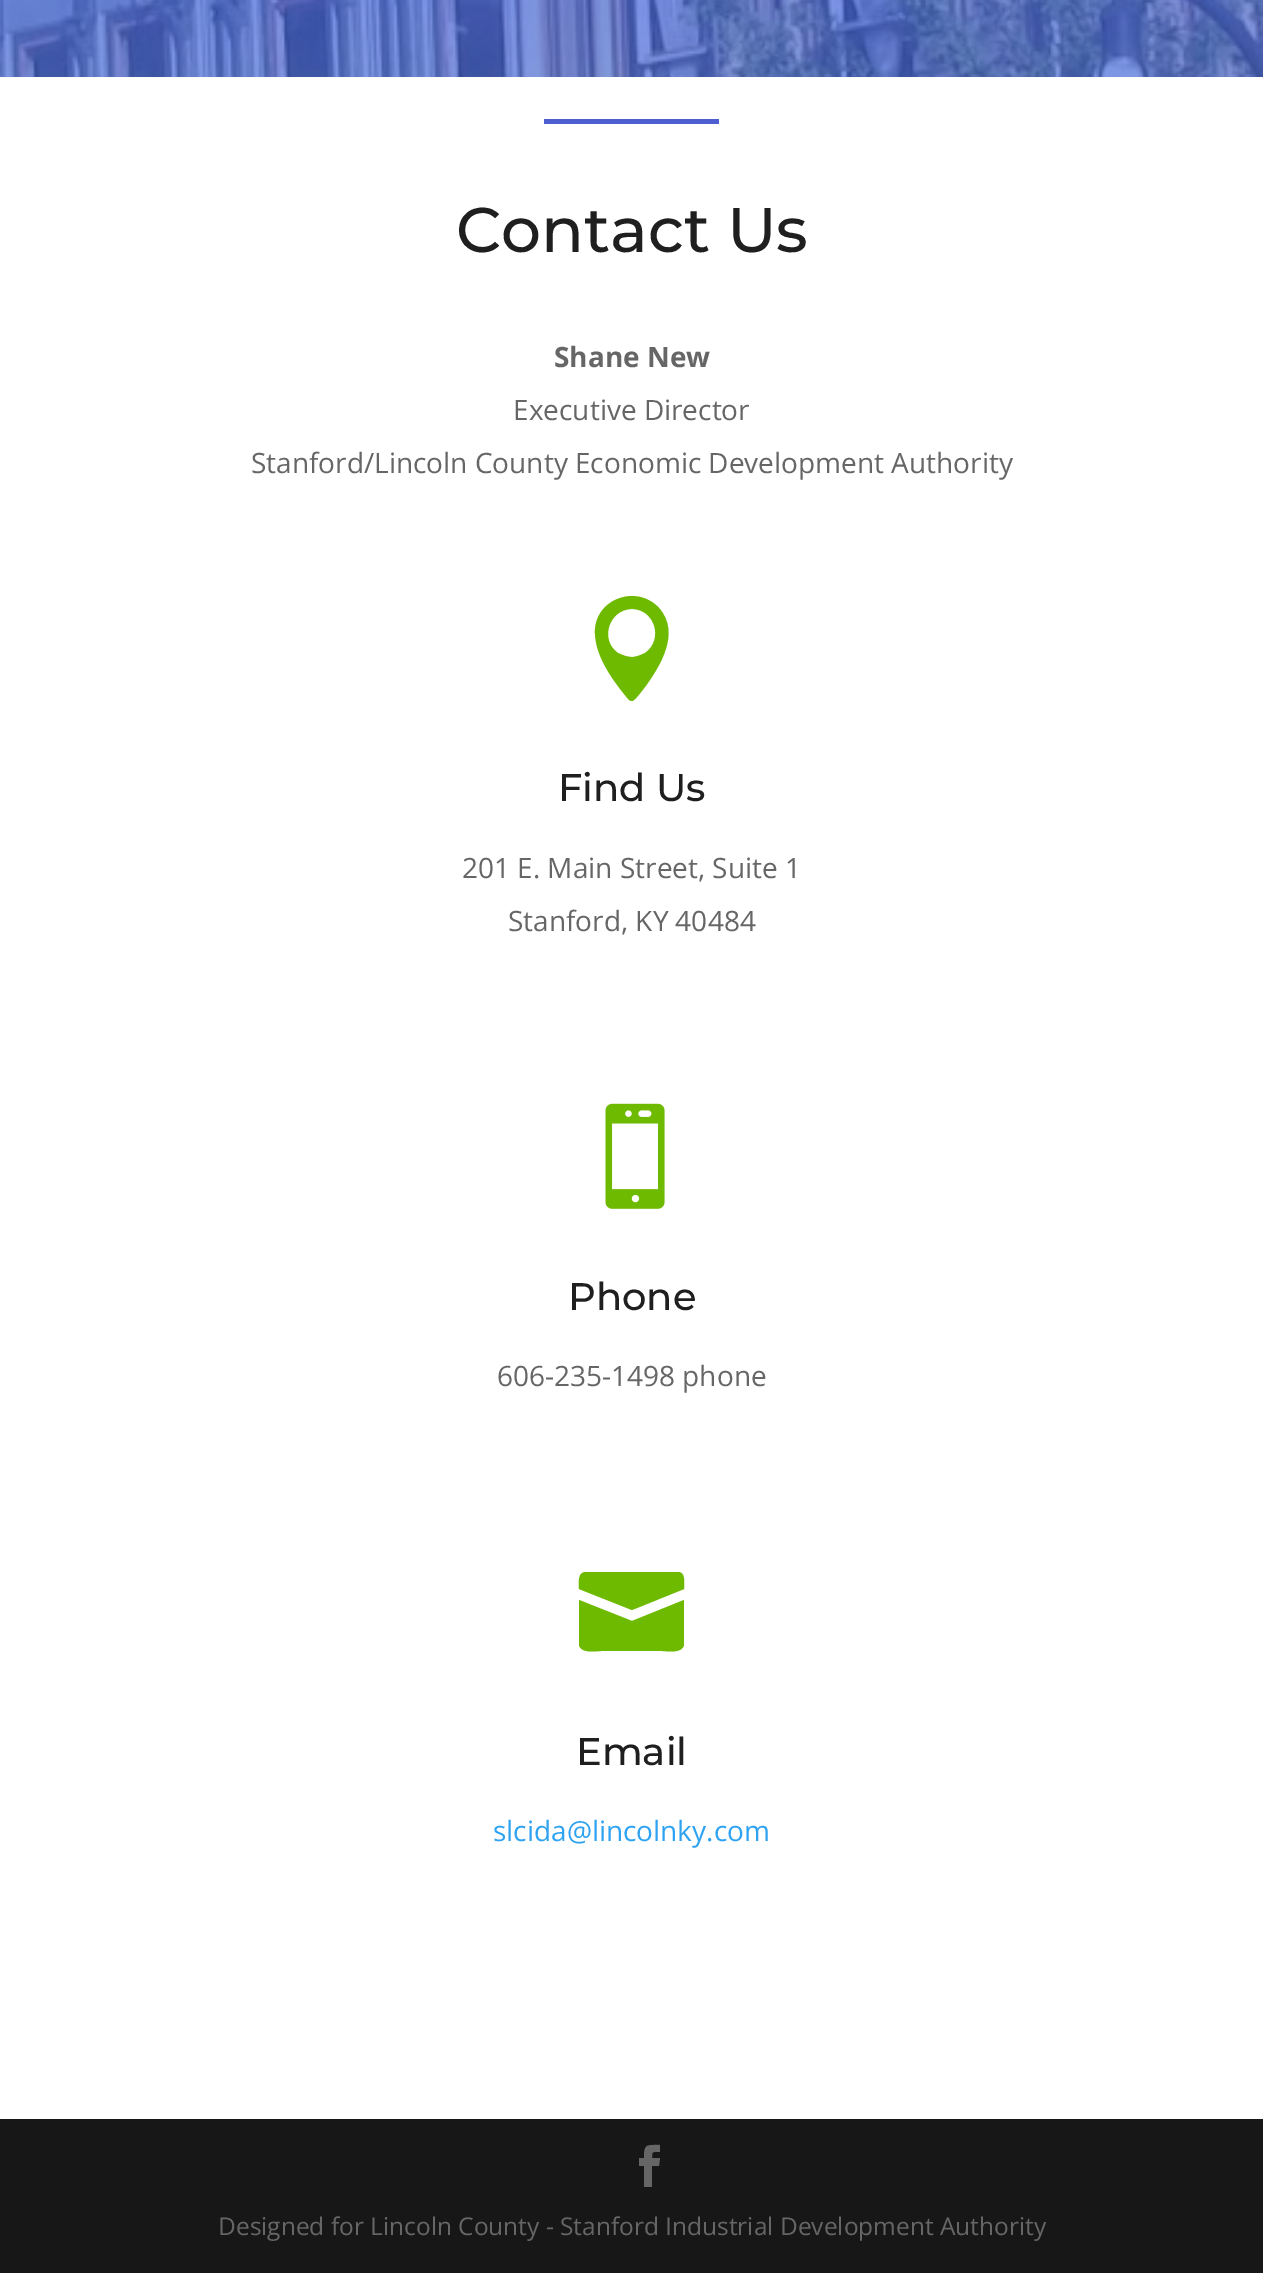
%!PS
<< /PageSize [1263 2273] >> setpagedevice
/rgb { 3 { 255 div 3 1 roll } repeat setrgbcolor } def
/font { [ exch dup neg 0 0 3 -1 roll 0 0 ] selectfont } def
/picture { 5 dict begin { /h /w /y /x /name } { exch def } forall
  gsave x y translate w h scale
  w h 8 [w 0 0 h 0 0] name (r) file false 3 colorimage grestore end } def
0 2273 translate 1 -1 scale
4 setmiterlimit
255 255 255 rgb
0 0 1263 2273 rectfill
(img/1.rgb) 0 0 1263 77 picture
78 94 208 rgb
544 119 175 5 rectfill
110 186 1 rgb
629 700 moveto 631 701 lineto 632 701 lineto 635 701 643 689 645 687 curveto 660 666 681 633 659 608 curveto 636 583 593 600 595 634 curveto 596 658 614 682 629 700 curveto closepath 632 609 moveto 655 609 664 640 645 653 curveto 641 655 636 657 632 657 curveto 627 657 622 655 618 653 curveto 599 640 609 609 632 609 curveto closepath fill
(img/2.rgb) 605 1103 60 106 picture
678 1572 moveto 586 1572 lineto 577 1572 579 1584 579 1589 curveto 632 1610 lineto 684 1589 lineto 684 1584 686 1572 678 1572 curveto closepath 579 1600 moveto 579 1645 lineto 581 1654 597 1651 601 1651 curveto 662 1651 lineto 666 1651 682 1654 684 1645 curveto 684 1600 lineto 632 1621 lineto closepath fill
23 23 23 rgb
0 2119 1263 154 rectfill
102 102 102 rgb
644 2187 moveto 652 2187 lineto 652 2166 lineto 659 2166 lineto 660 2158 lineto 652 2158 lineto 652 2151 652 2152 660 2152 curveto 660 2145 lineto 646 2145 644 2144 644 2158 curveto 639 2158 lineto 639 2166 lineto 644 2166 lineto closepath fill
/Montserrat-Medium 63 font
31 31 31 rgb
456 252 moveto (Contact Us) show
/OpenSans-Bold 28 font
102 102 102 rgb
554 367 moveto (Shane New) show
/OpenSans-Regular 28 font
513 420 moveto (Executive Director) show
251 473 moveto (Stanford/Lincoln County Economic Development Authority) show
/Montserrat-Medium 38.5 font
31 31 31 rgb
558 801 moveto (Find Us) show
/OpenSans-Regular 28 font
102 102 102 rgb
462 878 moveto (201 E. Main Street, Suite 1) show
508 931 moveto (Stanford, KY 40484) show
/Montserrat-Medium 38.5 font
31 31 31 rgb
568 1310 moveto (Phone) show
/OpenSans-Regular 28 font
102 102 102 rgb
497 1386 moveto (606-235-1498 phone) show
/Montserrat-Medium 38.5 font
31 31 31 rgb
576 1765 moveto (Email) show
/OpenSans-Regular 28 font
46 163 242 rgb
493 1841 moveto (slcida@lincolnky.com) show
/OpenSans-Regular 24.5 font
102 102 102 rgb
218 2235 moveto (Designed for Lincoln County - Stanford Industrial Development Authority) show
showpage
